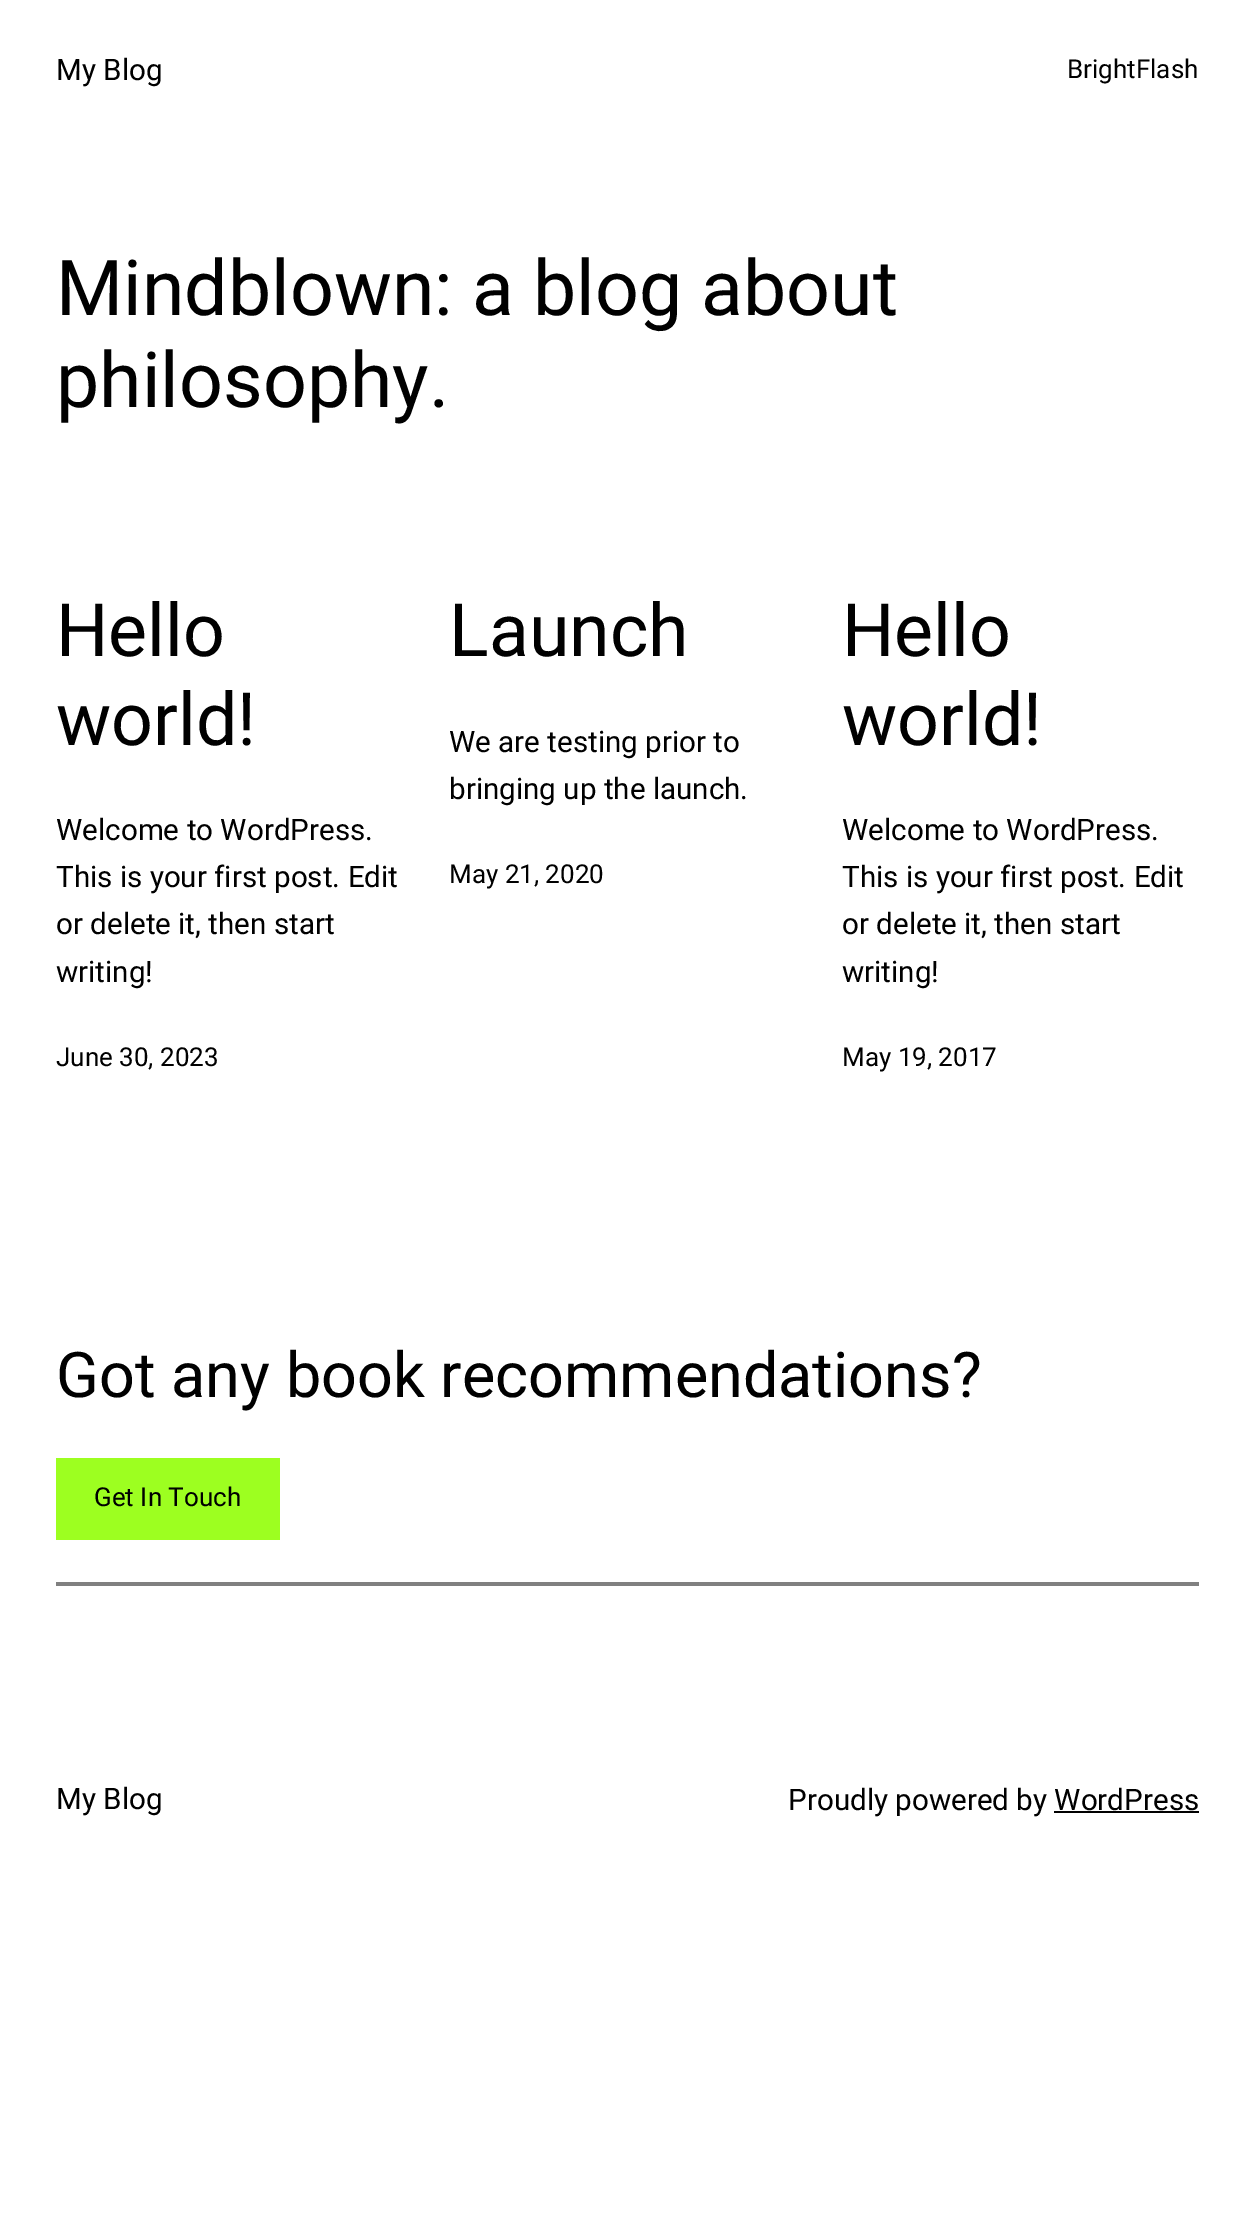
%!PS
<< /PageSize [1254 2237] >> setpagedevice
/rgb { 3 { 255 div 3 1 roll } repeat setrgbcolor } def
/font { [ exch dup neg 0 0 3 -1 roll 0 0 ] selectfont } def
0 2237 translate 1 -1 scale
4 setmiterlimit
255 255 255 rgb
0 0 1254 2237 rectfill
[
  [56 1458 224 82 157 255 32]
  [56 1582 1143 4 128 128 128]
  [1054 1811 145 2 0 0 0]
] { aload pop rgb rectfill } forall
/Roboto-Regular 29.6 font
56 80 moveto (My Blog) show
/Roboto-Regular 26 font
1067 78 moveto (BrightFlash) show
/Roboto-Regular 77 font
56 315 moveto (Mindblown: a blog about) show
56 407 moveto (philosophy.) show
/Roboto-Regular 73.5 font
56 656 moveto (Hello) show
56 745 moveto (world!) show
/Roboto-Regular 29.6 font
[
  [(Welcome to WordPress.) 56 840]
  [(This is your first post. Edit) 56 887]
  [(or delete it, then start) 56 934]
  [(writing!) 56 982]
] { aload pop moveto show } forall
/Roboto-Regular 26 font
56 1066 moveto (June 30, 2023) show
/Roboto-Regular 73.5 font
449 656 moveto (Launch) show
/Roboto-Regular 29.6 font
449 752 moveto (We are testing prior to) show
449 799 moveto (bringing up the launch.) show
/Roboto-Regular 26 font
449 883 moveto (May 21, 2020) show
/Roboto-Regular 73.5 font
842 656 moveto (Hello) show
842 745 moveto (world!) show
/Roboto-Regular 29.6 font
[
  [(Welcome to WordPress.) 842 840]
  [(This is your first post. Edit) 842 887]
  [(or delete it, then start) 842 934]
  [(writing!) 842 982]
] { aload pop moveto show } forall
/Roboto-Regular 26 font
842 1066 moveto (May 19, 2017) show
/Roboto-Regular 63 font
56 1397 moveto (Got any book recommendations?) show
/Roboto-Regular 26 font
94 1506 moveto (Get In Touch) show
/Roboto-Regular 29.6 font
56 1809 moveto (My Blog) show
788 1810 moveto (Proudly powered by WordPress) show
showpage
